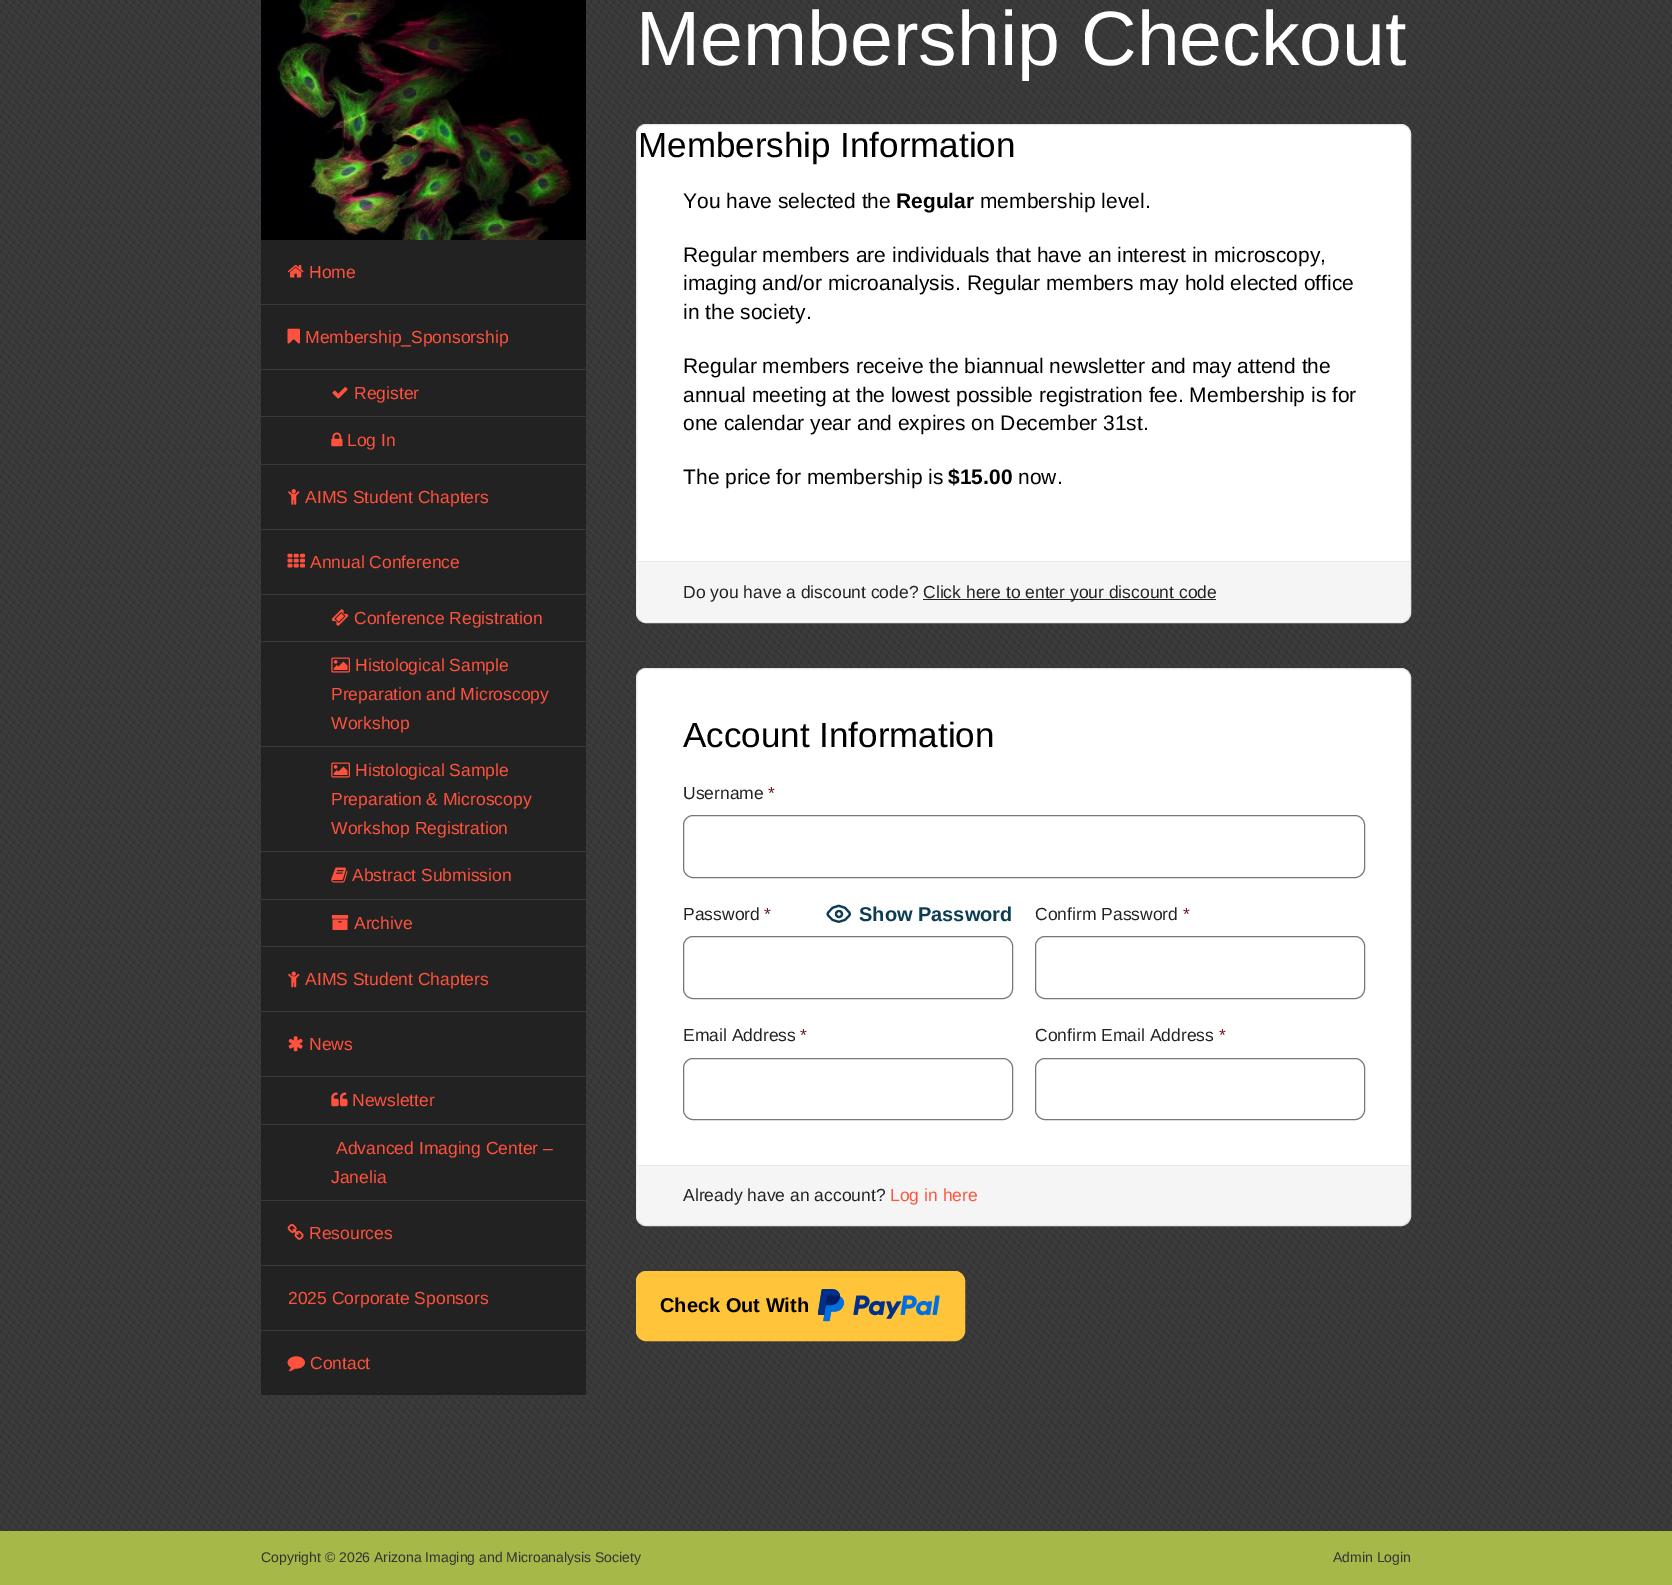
%!PS
<< /PageSize [1672 1585] /PageUsesTransparency true >> setpagedevice
/rgb { 3 { 255 div 3 1 roll } repeat setrgbcolor } def
/font { [ exch dup neg 0 0 3 -1 roll 0 0 ] selectfont } def
/alpha { dup .setfillconstantalpha .setstrokeconstantalpha } def
/circle { newpath 0 360 arc closepath } def
/roundrect { 5 dict begin { /r /h /w /y /x } { exch def } forall
  x r add y moveto x w add y 2 copy h add r arct x w add y h add x 1 index r arct
  x y h add x y r arct x y 2 copy exch w add exch r arct closepath end } def
/picture { 5 dict begin { /h /w /y /x /name } { exch def } forall
  gsave x y translate w h scale
  w h 8 [w 0 0 h 0 0] name (r) file false 3 colorimage grestore end } def
0 .pushpdf14devicefilter
0 1585 translate 1 -1 scale
4 setmiterlimit
255 255 255 rgb
0 0 1672 1585 rectfill
(img/1.rgb) 0 0 1672 1531 picture
34 34 34 rgb
261 240 325 1155 rectfill
(img/2.rgb) 261 0 325 240 picture
57 57 57 rgb
261 304 325 1 rectfill
(img/3.rgb) 287 265 17 13 picture
261 369 325 1 rectfill
(img/4.rgb) 287 328 13 16 picture
261 416 325 1 rectfill
(img/5.rgb) 332 387 16 12 picture
261 464 325 1 rectfill
(img/6.rgb) 331 432 12 15 picture
261 529 325 1 rectfill
(img/7.rgb) 288 489 12 16 picture
261 594 325 1 rectfill
(img/8.rgb) 287 553 18 15 picture
261 641 325 1 rectfill
(img/9.rgb) 331 609 18 17 picture
261 746 325 1 rectfill
(img/10.rgb) 331 657 19 16 picture
261 851 325 1 rectfill
(img/10.rgb) 331 762 19 16 picture
261 899 325 1 rectfill
(img/11.rgb) 331 867 17 16 picture
261 946 325 1 rectfill
(img/12.rgb) 331 915 18 15 picture
261 1011 325 1 rectfill
(img/13.rgb) 288 971 12 17 picture
261 1076 325 1 rectfill
(img/14.rgb) 288 1036 15 16 picture
261 1124 325 1 rectfill
(img/15.rgb) 331 1092 17 15 picture
261 1200 325 1 rectfill
261 1265 325 1 rectfill
(img/16.rgb) 287 1223 17 17 picture
261 1330 325 1 rectfill
261 1395 325 1 rectfill
(img/17.rgb) 287 1356 18 16 picture
255 255 255 rgb
636.5 124.5 774 498 9.5 roundrect gsave fill grestore
232 232 232 rgb
stroke
0.04 alpha
[
  [638 562 772 59 0 0 0]
] { aload pop rgb rectfill } forall
1 alpha
[
  [638 561 772 1 232 232 232]
  [923 599 293 1 34 34 34]
] { aload pop rgb rectfill } forall
255 255 255 rgb
636.5 668.5 774 557 9.5 roundrect gsave fill grestore
232 232 232 rgb
stroke
119 119 119 rgb
683.5 815.5 681 62 9.5 roundrect stroke
12 61 84 rgb
2.1 setlinewidth
1 setlinecap
1 setlinejoin
827.5 914 moveto 833 903 844.5 903 850 914 curveto 844.5 924.5 833 924.5 827.5 914 curveto closepath stroke
0 setlinecap
0 setlinejoin
839 914 3 circle stroke
119 119 119 rgb
1 setlinewidth
683.5 936.5 329 62 9.5 roundrect stroke
1035.5 936.5 329 62 9.5 roundrect stroke
683.5 1058.5 329 61 9.5 roundrect stroke
1035.5 1058.5 329 61 9.5 roundrect stroke
0.04 alpha
0 0 0 rgb
638 1166 772 59 rectfill
1 alpha
232 232 232 rgb
638 1165 772 1 rectfill
255 196 57 rgb
636.5 1271.5 328 69 9.5 roundrect gsave fill grestore
stroke
(img/18.rgb) 817 1289 123 33 picture
165 184 72 rgb
0 1531 1672 54 rectfill
/LiberationSans-Regular 17.5 font
255 81 61 rgb
[
  [(Home) 309 278]
  [(Membership_Sponsorship) 305 343]
  [(Register) 354 399]
  [(Log In) 347 446]
  [(AIMS Student Chapters) 305 503]
  [(Annual Conference) 310 568]
  [(Conference Registration) 354 624]
  [(Histological Sample) 355 671]
  [(Preparation and Microscopy) 331 700]
  [(Workshop) 331 729]
  [(Histological Sample) 355 776]
  [(Preparation & Microscopy) 331 805]
  [(Workshop Registration) 331 834]
  [(Abstract Submission) 352 881]
  [(Archive) 354 929]
  [(AIMS Student Chapters) 305 985]
  [(News) 309 1050]
  [(Newsletter) 352 1106]
  [(Advanced Imaging Center –) 336 1154]
  [(Janelia) 331 1183]
  [(Resources) 309 1239]
  [(2025 Corporate Sponsors) 288 1304]
  [(Contact) 310 1369]
] { aload pop moveto show } forall
/LiberationSans-Regular 77 font
255 255 255 rgb
636 65 moveto (Membership Checkout) show
/LiberationSans-Regular 35 font
0 0 0 rgb
638 157 moveto (Membership Information) show
/LiberationSans-Regular 21 font
683 208 moveto (You have selected the) show
/LiberationSans-Bold 21 font
896 208 moveto (Regular) show
/LiberationSans-Regular 21 font
[
  [(membership level.) 980 208]
  [(Regular members are individuals that have an interest in microscopy,) 683 262]
  [(imaging and/or microanalysis. Regular members may hold elected office) 683 290]
  [(in the society.) 683 319]
  [(Regular members receive the biannual newsletter and may attend the) 683 373]
  [(annual meeting at the lowest possible registration fee. Membership is for) 683 402]
  [(one calendar year and expires on December 31st.) 683 430]
  [(The price for membership is) 683 484]
] { aload pop moveto show } forall
/LiberationSans-Bold 21 font
948 484 moveto ($15.00) show
/LiberationSans-Regular 21 font
1018 484 moveto (now.) show
/LiberationSans-Regular 17.5 font
34 34 34 rgb
683 598 moveto (Do you have a discount code?) show
923 598 moveto (Click here to enter your discount code) show
/LiberationSans-Regular 35 font
0 0 0 rgb
683 747 moveto (Account Information) show
/LiberationSans-Regular 17.5 font
34 34 34 rgb
683 799 moveto (Username) show
114 28 36 rgb
768 799 moveto (*) show
34 34 34 rgb
683 920 moveto (Password) show
114 28 36 rgb
764 920 moveto (*) show
/LiberationSans-Bold 20 font
12 61 84 rgb
859 921 moveto (Show Password) show
/LiberationSans-Regular 17.5 font
34 34 34 rgb
1035 920 moveto (Confirm Password) show
114 28 36 rgb
1183 920 moveto (*) show
34 34 34 rgb
683 1041 moveto (Email Address) show
114 28 36 rgb
800 1041 moveto (*) show
34 34 34 rgb
1035 1041 moveto (Confirm Email Address) show
114 28 36 rgb
1219 1041 moveto (*) show
34 34 34 rgb
683 1201 moveto (Already have an account?) show
255 81 61 rgb
890 1201 moveto (Log in here) show
/LiberationSans-Bold 20 font
0 0 0 rgb
660 1312 moveto (Check Out With) show
/LiberationSans-Regular 14 font
51 51 51 rgb
261 1562 moveto (Copyright © 2026 Arizona Imaging and Microanalysis Society) show
1333 1562 moveto (Admin Login) show
.poppdf14devicefilter showpage
